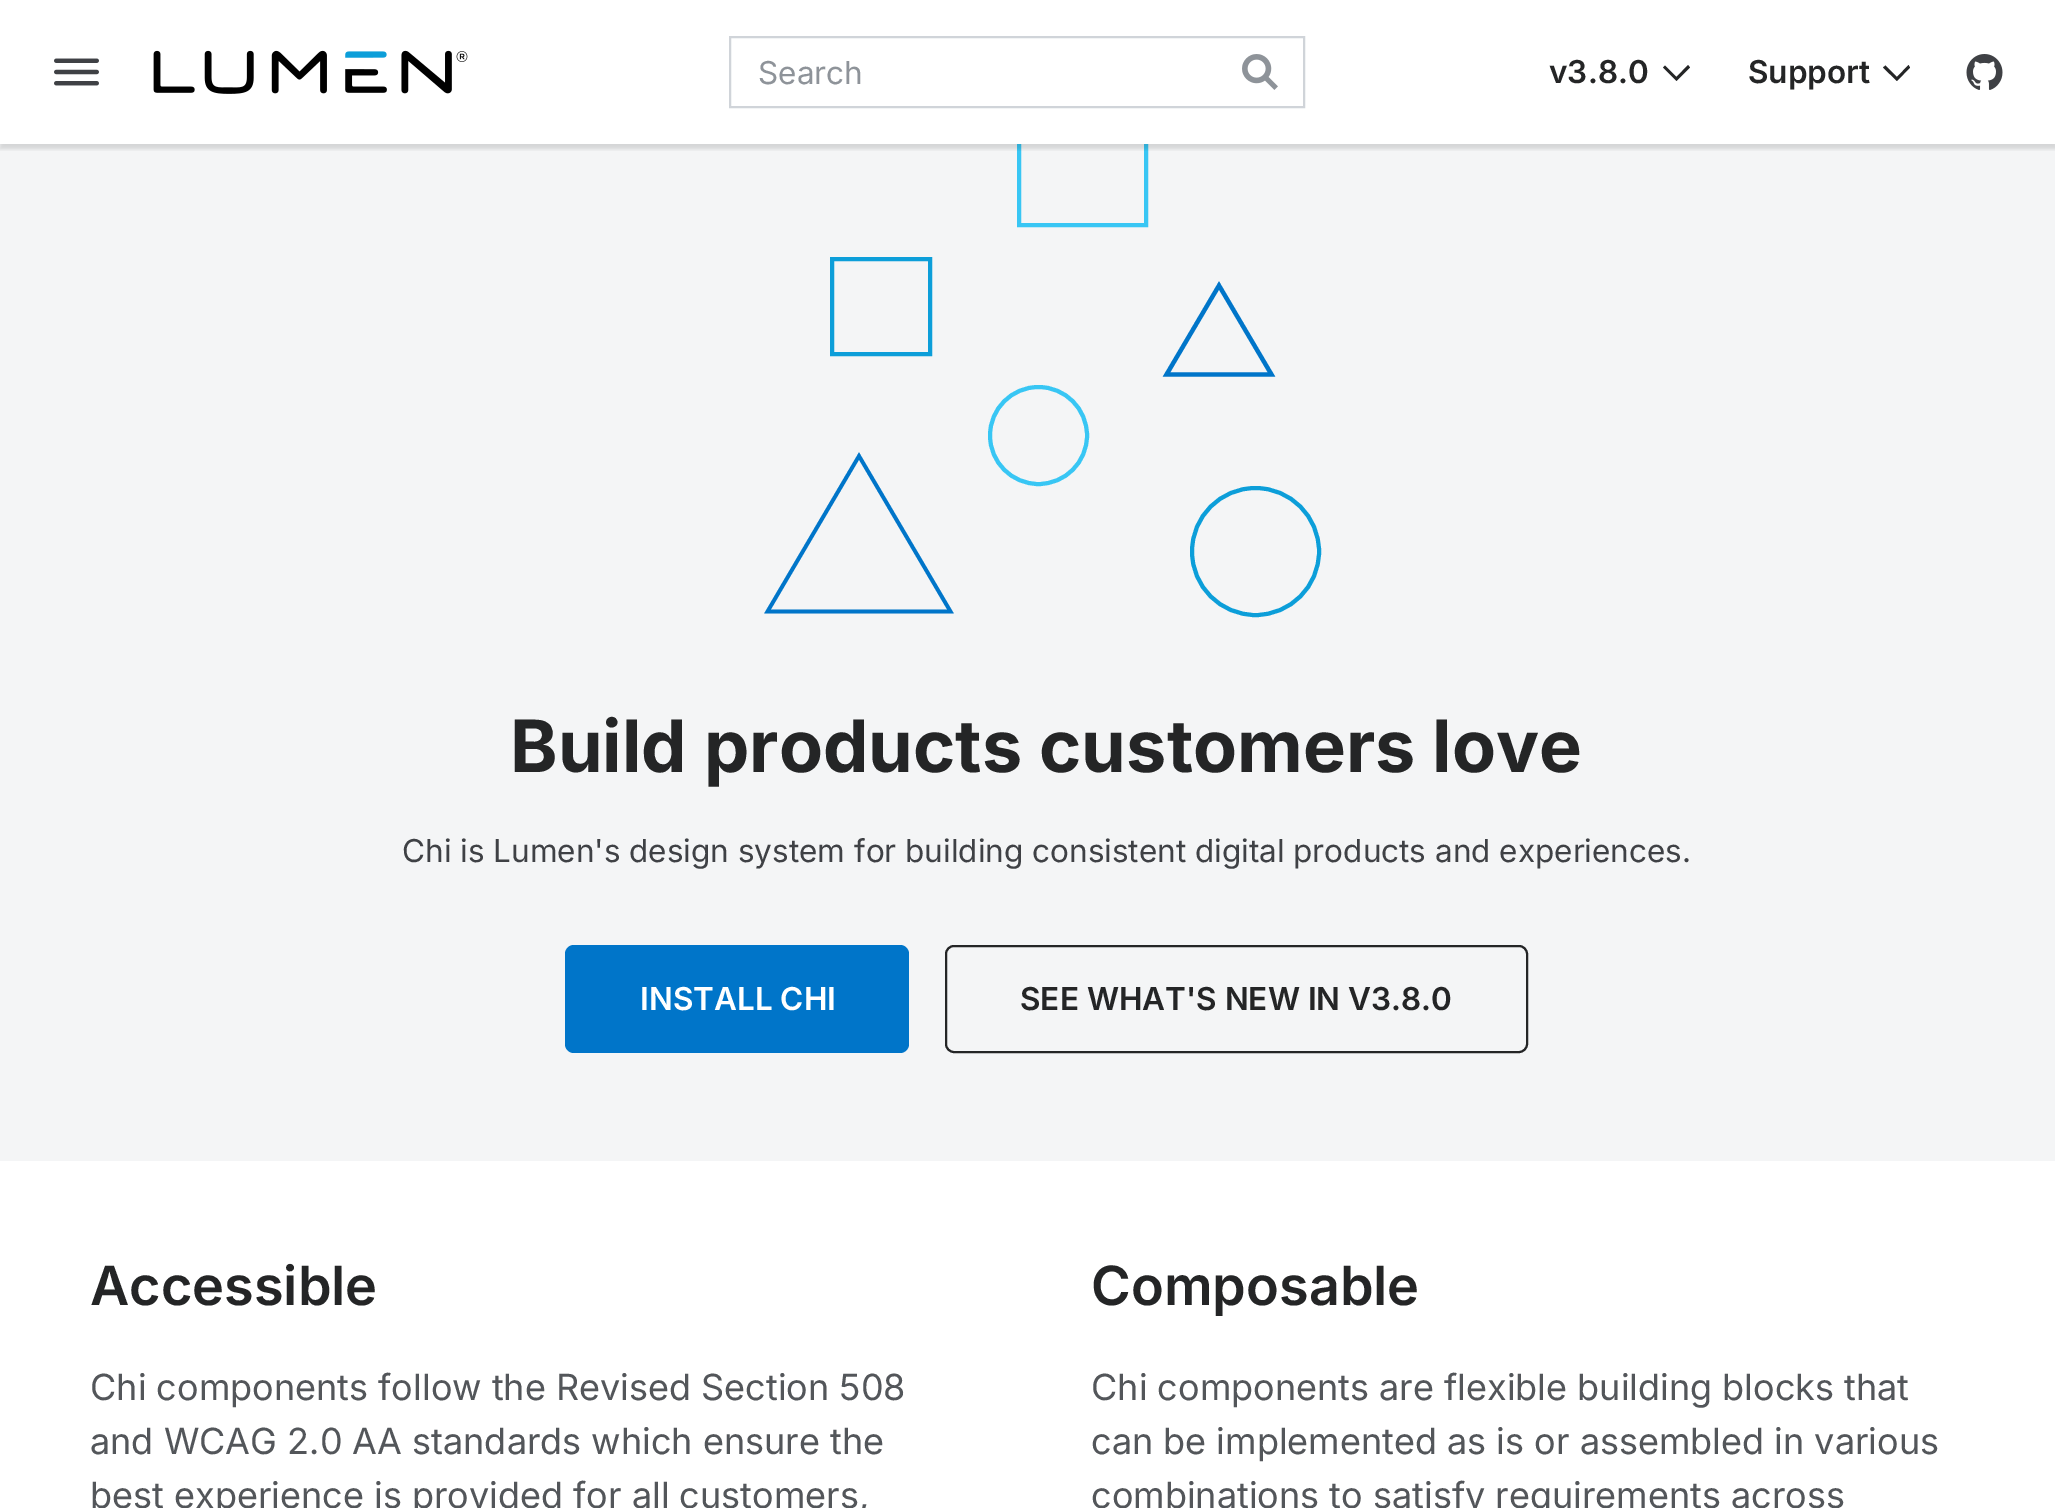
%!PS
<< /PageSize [2055 1508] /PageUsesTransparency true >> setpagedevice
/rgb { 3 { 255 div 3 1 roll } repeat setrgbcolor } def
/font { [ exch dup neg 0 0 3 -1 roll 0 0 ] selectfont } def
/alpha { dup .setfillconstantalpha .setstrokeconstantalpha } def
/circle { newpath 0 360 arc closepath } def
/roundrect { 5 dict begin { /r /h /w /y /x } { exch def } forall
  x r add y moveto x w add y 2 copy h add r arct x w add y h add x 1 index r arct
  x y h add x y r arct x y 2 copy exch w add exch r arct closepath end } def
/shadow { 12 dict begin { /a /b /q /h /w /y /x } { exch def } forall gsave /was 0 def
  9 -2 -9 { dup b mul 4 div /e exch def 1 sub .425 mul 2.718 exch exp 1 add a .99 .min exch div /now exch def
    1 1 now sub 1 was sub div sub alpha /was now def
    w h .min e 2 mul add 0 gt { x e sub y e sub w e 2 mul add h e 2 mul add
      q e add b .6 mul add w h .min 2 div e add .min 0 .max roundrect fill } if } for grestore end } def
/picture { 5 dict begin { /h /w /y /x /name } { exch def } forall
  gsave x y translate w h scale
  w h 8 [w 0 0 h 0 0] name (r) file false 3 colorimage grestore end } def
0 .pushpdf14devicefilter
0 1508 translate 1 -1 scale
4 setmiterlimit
255 255 255 rgb
0 0 2055 1508 rectfill
244 245 246 rgb
0 144 2055 1017 rectfill
gsave
0 144 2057 1017 rectclip
56 198 244 rgb
4 setlinewidth
1019 99 127 126 rectstroke
grestore
gsave
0 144 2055 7 rectclip
0 0 0 rgb
0 5 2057 144 0 2 0.12 shadow
grestore
(img/1.rgb) 54 58 45 28 picture
(img/2.rgb) 153 50 315 44 picture
208 212 217 rgb
2 setlinewidth
730 37 574 70 rectstroke
(img/3.rgb) 1242 54 36 36 picture
36 37 38 rgb
1676.5 77 moveto 1688 65 lineto 1690 67.5 lineto 1676.5 81 lineto 1663 67.5 lineto 1665 65.5 lineto closepath fill
1897 77 moveto 1908.5 65 lineto 1910 67.5 lineto 1897 81 lineto 1883 67.5 lineto 1885.5 65.5 lineto closepath fill
(img/4.rgb) 1966 54 37 36 picture
12 158 217 rgb
4 setlinewidth
832 259 98 95 rectstroke
0 117 201 rgb
4.2 setlinewidth
1219 285.5 moveto 1271.5 374.5 lineto 1166.5 374.5 lineto closepath stroke
56 198 244 rgb
4 setlinewidth
1038.5 435.5 48.5 circle stroke
0 117 201 rgb
3.7 setlinewidth
859 456 moveto 950.5 611.5 lineto 767.5 611.5 lineto closepath stroke
12 158 217 rgb
4 setlinewidth
1255.5 551.5 63.5 circle stroke
0 117 201 rgb
565 945 344 108 9 roundrect fill
36 37 38 rgb
2 setlinewidth
946 946 581 106 8 roundrect stroke
/Inter-Regular 31.5 font
142 147 153 rgb
758 84 moveto (Search) show
/Inter-SemiBold 31.5 font
36 37 38 rgb
1549 83 moveto (v3.8.0) show
1748 83 moveto (Support) show
/Inter-Bold 72 font
510 772 moveto (Build products customers love) show
/Inter-Regular 31.5 font
63 65 69 rgb
402 862 moveto (Chi is Lumen's design system for building consistent digital products and experiences.) show
/Inter-SemiBold 31.5 font
255 255 255 rgb
640 1010 moveto (INSTALL CHI) show
36 37 38 rgb
1020 1010 moveto (SEE WHAT'S NEW IN V3.8.0) show
/Inter-SemiBold 54 font
90 1305 moveto (Accessible) show
/Inter-Regular 36 font
83 86 90 rgb
[
  [(Chi components follow the Revised Section 508) 90 1400]
  [(and WCAG 2.0 AA standards which ensure the) 90 1454]
  [(best experience is provided for all customers,) 90 1508]
] { aload pop moveto show } forall
/Inter-SemiBold 54 font
36 37 38 rgb
1091 1305 moveto (Composable) show
/Inter-Regular 36 font
83 86 90 rgb
[
  [(Chi components are flexible building blocks that) 1091 1400]
  [(can be implemented as is or assembled in various) 1091 1454]
  [(combinations to satisfy requirements across) 1091 1508]
] { aload pop moveto show } forall
.poppdf14devicefilter showpage
